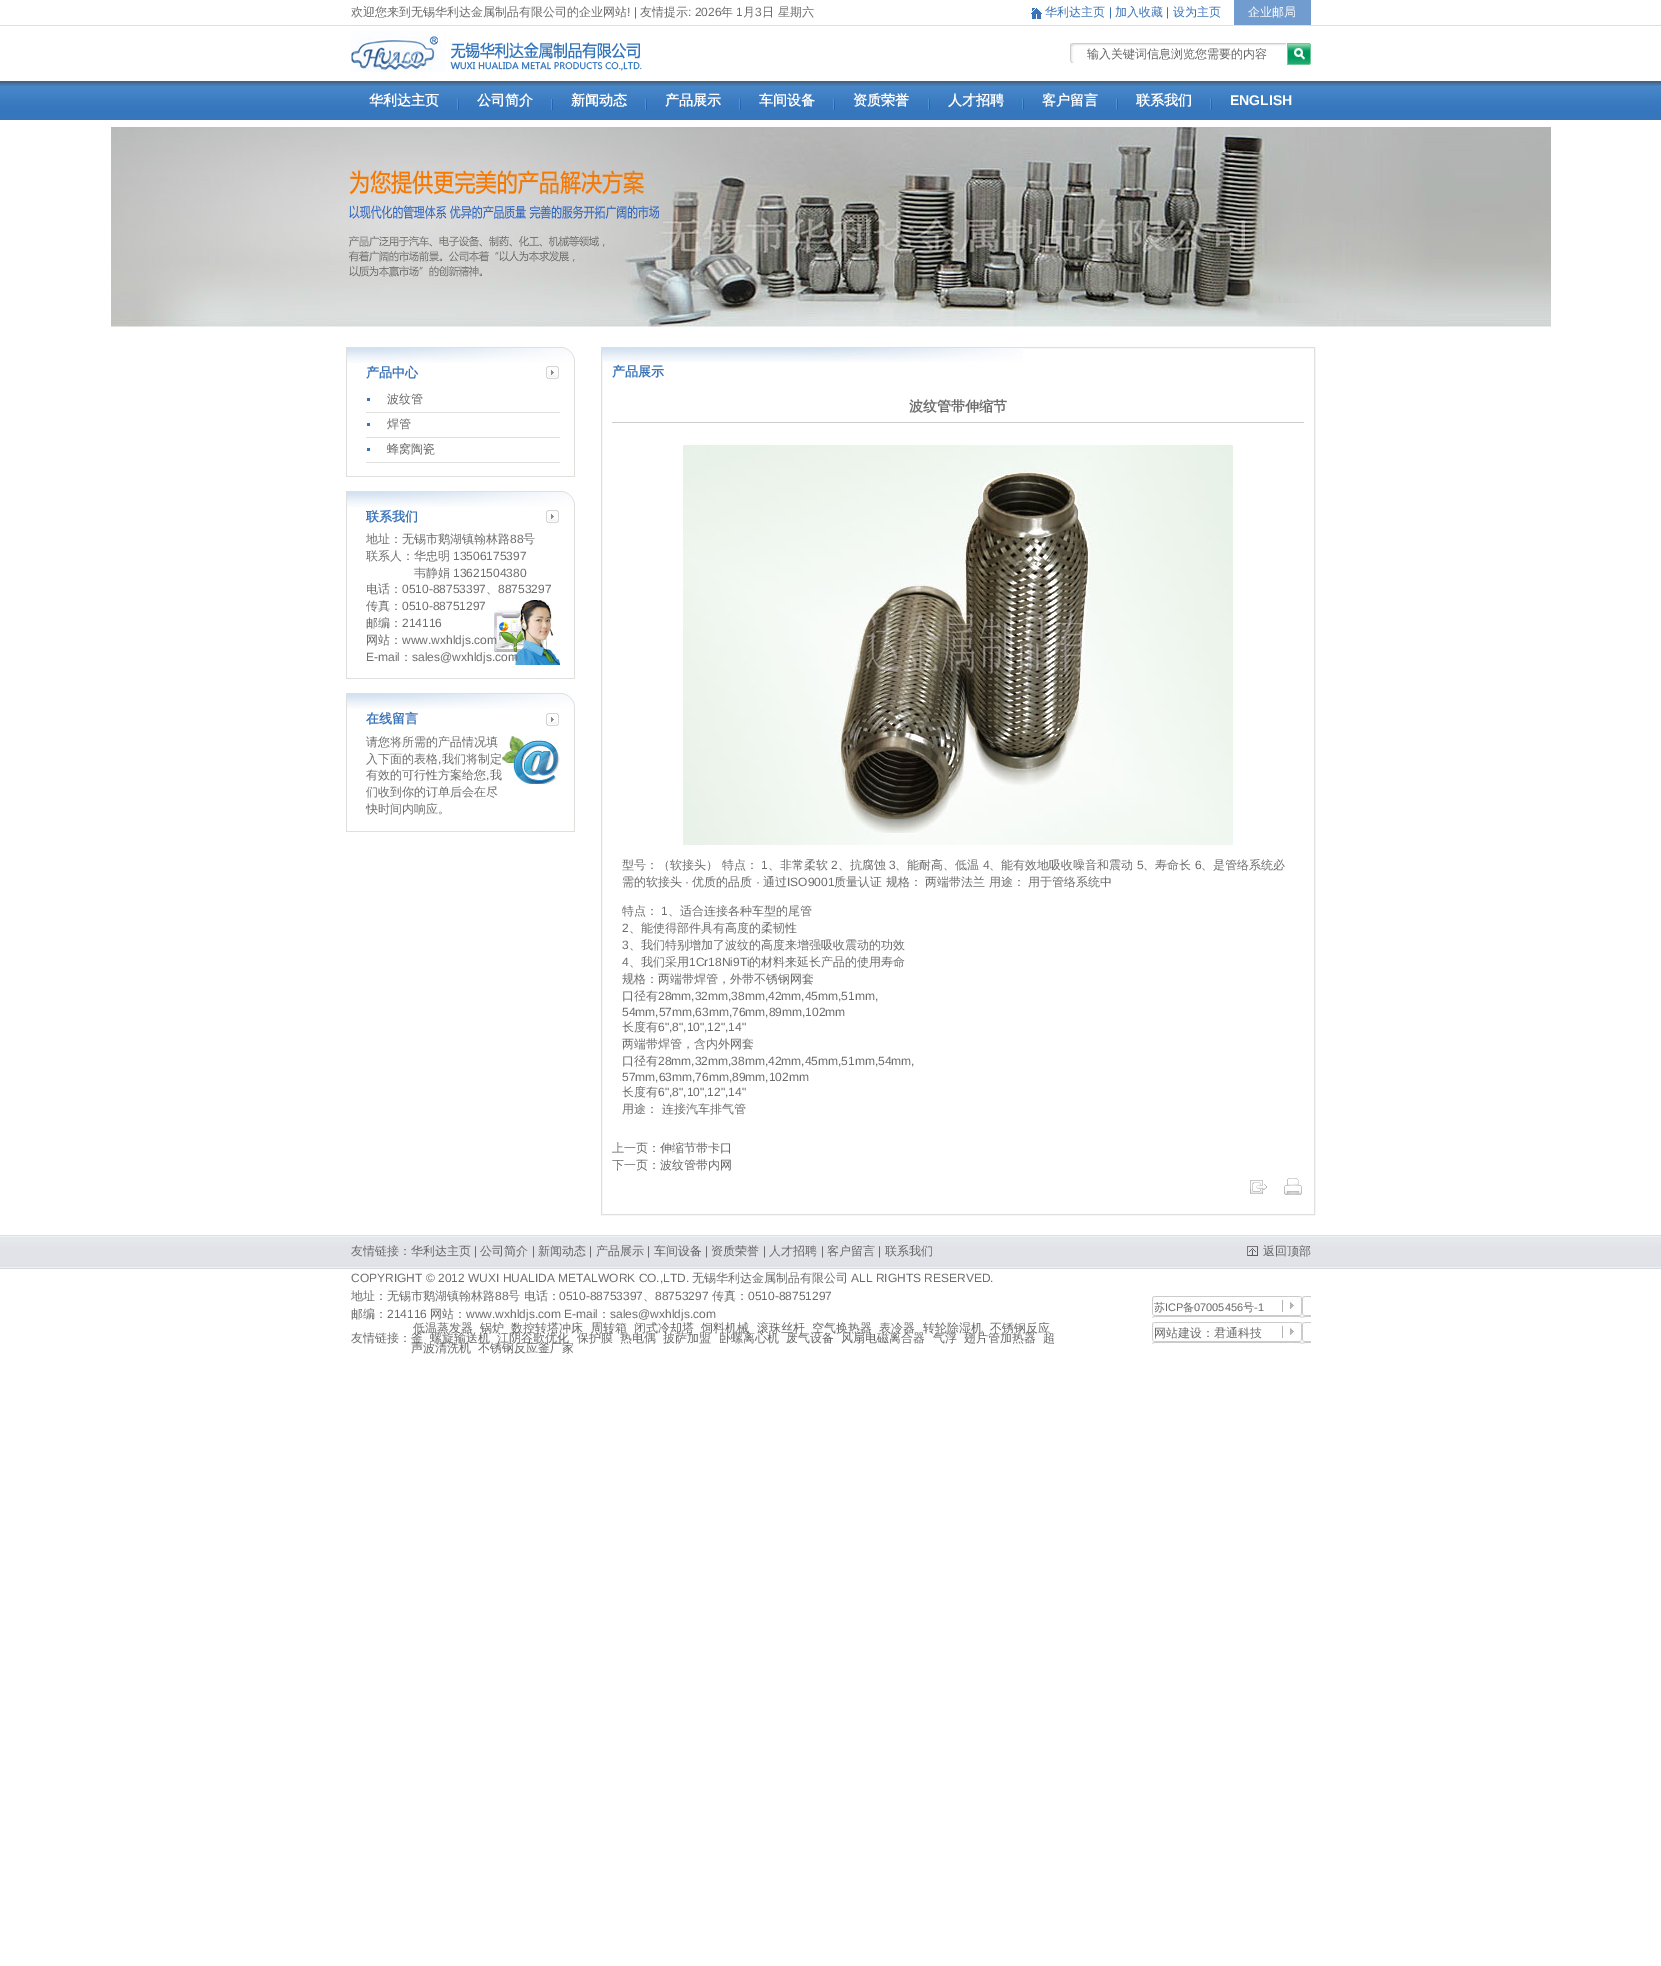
%!PS
<< /PageSize [1661 1966] >> setpagedevice
/rgb { 3 { 255 div 3 1 roll } repeat setrgbcolor } def
/font { [ exch dup neg 0 0 3 -1 roll 0 0 ] selectfont } def
/picture { 5 dict begin { /h /w /y /x /name } { exch def } forall
  gsave x y translate w h scale
  w h 8 [w 0 0 h 0 0] name (r) file false 3 colorimage grestore end } def
0 1966 translate 1 -1 scale
4 setmiterlimit
255 255 255 rgb
0 0 1661 1966 rectfill
(img/1.rgb) 1031 7 11 12 picture
113 156 207 rgb
1234 0 77 25 rectfill
223 223 223 rgb
0 25 1661 1 rectfill
(img/2.rgb) 351 31 292 41 picture
(img/3.rgb) 1070 43 216 3 picture
(img/4.rgb) 1070 46 4 17 picture
(img/5.rgb) 1287 43 24 22 picture
(img/6.rgb) 0 81 1661 39 picture
(img/7.rgb) 457 99 2 11 picture
(img/7.rgb) 551 99 2 11 picture
(img/7.rgb) 645 99 2 11 picture
(img/7.rgb) 739 99 2 11 picture
(img/7.rgb) 833 99 2 11 picture
(img/7.rgb) 928 99 2 11 picture
(img/7.rgb) 1022 99 2 11 picture
(img/7.rgb) 1116 99 2 11 picture
(img/7.rgb) 1210 99 2 11 picture
(img/8.rgb) 111 127 1440 200 picture
(img/9.rgb) 346 347 229 16 picture
346 363 1 100 rectfill
(img/10.rgb) 546 366 13 13 picture
[
  [366 412 194 1 223 223 223]
  [367 398 3 3 57 116 184]
  [366 437 194 1 223 223 223]
  [367 423 3 3 57 116 184]
  [366 462 194 1 223 223 223]
  [367 448 3 3 57 116 184]
  [574 363 1 100 223 223 223]
] { aload pop rgb rectfill } forall
(img/11.rgb) 346 463 229 14 picture
(img/9.rgb) 346 491 229 16 picture
346 507 1 158 rectfill
(img/10.rgb) 546 510 13 13 picture
(img/12.rgb) 494 600 66 65 picture
(img/13.rgb) 574 507 1 158 picture
(img/11.rgb) 346 665 229 14 picture
(img/9.rgb) 346 693 229 16 picture
346 709 1 109 rectfill
(img/10.rgb) 546 713 13 13 picture
(img/14.rgb) 502 734 58 52 picture
574 709 1 109 rectfill
(img/11.rgb) 346 818 229 14 picture
601.5 347.5 713 867 rectstroke
(img/15.rgb) 602 348 421 14 picture
204 204 204 rgb
612 422 692 1 rectfill
(img/16.rgb) 683 445 550 400 picture
(img/17.rgb) 1250 1180 17 14 picture
(img/18.rgb) 1284 1178 18 17 picture
(img/19.rgb) 0 1235 1661 34 picture
(img/20.rgb) 1247 1246 11 10 picture
(img/21.rgb) 1152 1296 159 22 picture
(img/21.rgb) 1152 1322 159 22 picture
/WenQuanYiZenHei-Medium 12 font
109 109 109 rgb
351 16 moveto (欢迎您来到无锡华利达金属制品有限公司的企业网站) show
/LiberationSans-Regular 12 font
627 16 moveto (! |) show
/WenQuanYiZenHei-Medium 12 font
640 16 moveto (友情提示) show
/LiberationSans-Regular 12 font
688 16 moveto (: 2026) show
/WenQuanYiZenHei-Medium 12 font
721 16 moveto (年) show
/LiberationSans-Regular 12 font
736 16 moveto (1) show
/WenQuanYiZenHei-Medium 12 font
743 16 moveto (月) show
/LiberationSans-Regular 12 font
755 16 moveto (3) show
/WenQuanYiZenHei-Medium 12 font
762 16 moveto (日 星期六) show
59 115 185 rgb
1045 16 moveto (华利达主页) show
/LiberationSans-Regular 12 font
1109 16 moveto (|) show
/WenQuanYiZenHei-Medium 12 font
1115 16 moveto (加入收藏) show
/LiberationSans-Regular 12 font
1166 16 moveto (|) show
/WenQuanYiZenHei-Medium 12 font
1173 16 moveto (设为主页) show
255 255 255 rgb
1248 16 moveto (企业邮局) show
102 102 102 rgb
1087 58 moveto (输入关键词信息浏览您需要的内容) show
/WenQuanYiZenHei-Bold 14 font
255 255 255 rgb
[
  [(华利达主页) 369 105]
  [(公司简介) 477 105]
  [(新闻动态) 571 105]
  [(产品展示) 665 105]
  [(车间设备) 759 105]
  [(资质荣誉) 853 105]
  [(人才招聘) 948 105]
  [(客户留言) 1042 105]
  [(联系我们) 1136 105]
] { aload pop moveto show } forall
/LiberationSans-Bold 14 font
1230 105 moveto (ENGLISH) show
/WenQuanYiZenHei-Bold 13 font
59 115 185 rgb
366 377 moveto (产品中心) show
/WenQuanYiZenHei-Medium 12 font
102 102 102 rgb
[
  [(波纹管) 387 403]
  [(焊管) 387 428]
  [(蜂窝陶瓷) 387 453]
] { aload pop moveto show } forall
/WenQuanYiZenHei-Bold 13 font
59 115 185 rgb
366 521 moveto (联系我们) show
/WenQuanYiZenHei-Medium 12 font
109 109 109 rgb
366 543 moveto (地址：无锡市鹅湖镇翰林路) show
/LiberationSans-Regular 12 font
510 543 moveto (88) show
/WenQuanYiZenHei-Medium 12 font
523 543 moveto (号) show
366 560 moveto (联系人：华忠明) show
/LiberationSans-Regular 12 font
453 560 moveto (13506175397) show
/WenQuanYiZenHei-Medium 12 font
414 577 moveto (韦静娟) show
/LiberationSans-Regular 12 font
453 577 moveto (13621504380) show
/WenQuanYiZenHei-Medium 12 font
366 593 moveto (电话：) show
/LiberationSans-Regular 12 font
402 593 moveto (0510-88753397) show
/WenQuanYiZenHei-Medium 12 font
486 593 moveto (、) show
/LiberationSans-Regular 12 font
498 593 moveto (88753297) show
/WenQuanYiZenHei-Medium 12 font
366 610 moveto (传真：) show
/LiberationSans-Regular 12 font
402 610 moveto (0510-88751297) show
/WenQuanYiZenHei-Medium 12 font
366 627 moveto (邮编：) show
/LiberationSans-Regular 12 font
402 627 moveto (214116) show
/WenQuanYiZenHei-Medium 12 font
366 644 moveto (网站：) show
/LiberationSans-Regular 12 font
402 644 moveto (www.wxhldjs.com) show
366 661 moveto (E-mail) show
/WenQuanYiZenHei-Medium 12 font
400 661 moveto (：) show
/LiberationSans-Regular 12 font
412 661 moveto (sales@wxhldjs.com) show
/WenQuanYiZenHei-Bold 13 font
59 115 185 rgb
366 723 moveto (在线留言) show
/WenQuanYiZenHei-Medium 12 font
109 109 109 rgb
366 746 moveto (请您将所需的产品情况填) show
366 763 moveto (入下面的表格 我们将制定) show
/LiberationSans-Regular 12 font
438 763 moveto (,) show
/WenQuanYiZenHei-Medium 12 font
366 779 moveto (有效的可行性方案给您 我) show
/LiberationSans-Regular 12 font
486 779 moveto (,) show
/WenQuanYiZenHei-Medium 12 font
366 796 moveto (们收到你的订单后会在尽) show
366 813 moveto (快时间内响应。) show
/WenQuanYiZenHei-Bold 13 font
59 115 185 rgb
612 376 moveto (产品展示) show
/WenQuanYiZenHei-Bold 14 font
109 109 109 rgb
909 411 moveto (波纹管带伸缩节) show
/WenQuanYiZenHei-Medium 12 font
622 869 moveto (型号：（软接头） 特点：) show
/LiberationSans-Regular 12 font
761 869 moveto (1) show
/WenQuanYiZenHei-Medium 12 font
768 869 moveto (、非常柔软) show
/LiberationSans-Regular 12 font
831 869 moveto (2) show
/WenQuanYiZenHei-Medium 12 font
838 869 moveto (、抗腐蚀) show
/LiberationSans-Regular 12 font
889 869 moveto (3) show
/WenQuanYiZenHei-Medium 12 font
895 869 moveto (、能耐高、低温) show
/LiberationSans-Regular 12 font
983 869 moveto (4) show
/WenQuanYiZenHei-Medium 12 font
989 869 moveto (、能有效地吸收噪音和震动) show
/LiberationSans-Regular 12 font
1137 869 moveto (5) show
/WenQuanYiZenHei-Medium 12 font
1143 869 moveto (、寿命长) show
/LiberationSans-Regular 12 font
1195 869 moveto (6) show
/WenQuanYiZenHei-Medium 12 font
1201 869 moveto (、是管络系统必) show
622 886 moveto (需的软接头) show
/LiberationSans-Regular 12 font
685 886 moveto (·) show
/WenQuanYiZenHei-Medium 12 font
692 886 moveto (优质的品质) show
/LiberationSans-Regular 12 font
756 886 moveto (·) show
/WenQuanYiZenHei-Medium 12 font
763 886 moveto (通过) show
/LiberationSans-Regular 12 font
787 886 moveto (ISO9001) show
/WenQuanYiZenHei-Medium 12 font
834 886 moveto (质量认证 规格： 两端带法兰 用途： 用于管络系统中) show
622 915 moveto (特点：) show
/LiberationSans-Regular 12 font
661 915 moveto (1) show
/WenQuanYiZenHei-Medium 12 font
668 915 moveto (、适合连接各种车型的尾管) show
/LiberationSans-Regular 12 font
622 932 moveto (2) show
/WenQuanYiZenHei-Medium 12 font
629 932 moveto (、能使得部件具有高度的柔韧性) show
/LiberationSans-Regular 12 font
622 949 moveto (3) show
/WenQuanYiZenHei-Medium 12 font
629 949 moveto (、我们特别增加了波纹的高度来增强吸收震动的功效) show
/LiberationSans-Regular 12 font
622 966 moveto (4) show
/WenQuanYiZenHei-Medium 12 font
629 966 moveto (、我们采用) show
/LiberationSans-Regular 12 font
689 966 moveto (1Cr18Ni9Ti) show
/WenQuanYiZenHei-Medium 12 font
[
  [(的材料来延长产品的使用寿命) 749 966]
  [(规格：两端带焊管，外带不锈钢网套) 622 983]
  [(口径有) 622 1000]
] { aload pop moveto show } forall
/LiberationSans-Regular 12 font
658 1000 moveto (28mm,32mm,38mm,42mm,45mm,51mm,) show
622 1016 moveto (54mm,57mm,63mm,76mm,89mm,102mm) show
/WenQuanYiZenHei-Medium 12 font
622 1031 moveto (长度有) show
/LiberationSans-Regular 12 font
658 1031 moveto (6",8",10",12",14") show
/WenQuanYiZenHei-Medium 12 font
622 1048 moveto (两端带焊管，含内外网套) show
622 1065 moveto (口径有) show
/LiberationSans-Regular 12 font
658 1065 moveto (28mm,32mm,38mm,42mm,45mm,51mm,54mm,) show
622 1081 moveto (57mm,63mm,76mm,89mm,102mm) show
/WenQuanYiZenHei-Medium 12 font
622 1096 moveto (长度有) show
/LiberationSans-Regular 12 font
658 1096 moveto (6",8",10",12",14") show
/WenQuanYiZenHei-Medium 12 font
622 1113 moveto (用途： 连接汽车排气管) show
102 102 102 rgb
612 1152 moveto (上一页：伸缩节带卡口) show
612 1169 moveto (下一页：波纹管带内网) show
109 109 109 rgb
351 1255 moveto (友情链接：) show
102 102 102 rgb
411 1255 moveto (华利达主页) show
/LiberationSans-Regular 12 font
109 109 109 rgb
474 1255 moveto (|) show
/WenQuanYiZenHei-Medium 12 font
102 102 102 rgb
480 1255 moveto (公司简介) show
/LiberationSans-Regular 12 font
109 109 109 rgb
532 1255 moveto (|) show
/WenQuanYiZenHei-Medium 12 font
102 102 102 rgb
538 1255 moveto (新闻动态) show
/LiberationSans-Regular 12 font
109 109 109 rgb
589 1255 moveto (|) show
/WenQuanYiZenHei-Medium 12 font
102 102 102 rgb
596 1255 moveto (产品展示) show
/LiberationSans-Regular 12 font
109 109 109 rgb
647 1255 moveto (|) show
/WenQuanYiZenHei-Medium 12 font
102 102 102 rgb
654 1255 moveto (车间设备) show
/LiberationSans-Regular 12 font
109 109 109 rgb
705 1255 moveto (|) show
/WenQuanYiZenHei-Medium 12 font
102 102 102 rgb
711 1255 moveto (资质荣誉) show
/LiberationSans-Regular 12 font
109 109 109 rgb
763 1255 moveto (|) show
/WenQuanYiZenHei-Medium 12 font
102 102 102 rgb
769 1255 moveto (人才招聘) show
/LiberationSans-Regular 12 font
109 109 109 rgb
821 1255 moveto (|) show
/WenQuanYiZenHei-Medium 12 font
102 102 102 rgb
827 1255 moveto (客户留言) show
/LiberationSans-Regular 12 font
109 109 109 rgb
878 1255 moveto (|) show
/WenQuanYiZenHei-Medium 12 font
102 102 102 rgb
885 1255 moveto (联系我们) show
1263 1255 moveto (返回顶部) show
/LiberationSans-Regular 12 font
109 109 109 rgb
351 1282 moveto (COPYRIGHT © 2012 WUXI HUALIDA METALWORK CO.,LTD.) show
/WenQuanYiZenHei-Medium 12 font
692 1282 moveto (无锡华利达金属制品有限公司) show
/LiberationSans-Regular 12 font
851 1282 moveto (ALL RIGHTS RESERVED.) show
/WenQuanYiZenHei-Medium 12 font
351 1300 moveto (地址：无锡市鹅湖镇翰林路) show
/LiberationSans-Regular 12 font
495 1300 moveto (88) show
/WenQuanYiZenHei-Medium 12 font
508 1300 moveto (号 电话：) show
/LiberationSans-Regular 12 font
559 1300 moveto (0510-88753397) show
/WenQuanYiZenHei-Medium 12 font
643 1300 moveto (、) show
/LiberationSans-Regular 12 font
655 1300 moveto (88753297) show
/WenQuanYiZenHei-Medium 12 font
712 1300 moveto (传真：) show
/LiberationSans-Regular 12 font
748 1300 moveto (0510-88751297) show
/WenQuanYiZenHei-Medium 12 font
351 1318 moveto (邮编：) show
/LiberationSans-Regular 12 font
387 1318 moveto (214116) show
/WenQuanYiZenHei-Medium 12 font
430 1318 moveto (网站：) show
/LiberationSans-Regular 12 font
466 1318 moveto (www.wxhldjs.com E-mail) show
/WenQuanYiZenHei-Medium 12 font
598 1318 moveto (：) show
/LiberationSans-Regular 12 font
610 1318 moveto (sales@wxhldjs.com) show
/WenQuanYiZenHei-Medium 12 font
351 1342 moveto (友情链接：) show
102 102 102 rgb
[
  [(低温蒸发器) 413 1332]
  [(锅炉) 480 1332]
  [(数控转塔冲床) 511 1332]
  [(周转箱) 591 1332]
  [(闭式冷却塔) 634 1332]
  [(饲料机械) 701 1332]
  [(滚珠丝杆) 757 1332]
  [(空气换热器) 812 1332]
  [(表冷器) 879 1332]
  [(转轮除湿机) 923 1332]
  [(不锈钢反应) 990 1332]
  [(釜) 411 1342]
  [(螺旋输送机) 430 1342]
  [(江阴谷歌优化) 497 1342]
  [(保护膜) 577 1342]
  [(热电偶) 620 1342]
  [(披萨加盟) 663 1342]
  [(卧螺离心机) 719 1342]
  [(废气设备) 786 1342]
  [(风扇电磁离合器) 841 1342]
  [(气浮) 933 1342]
  [(翅片管加热器) 964 1342]
  [(超) 1043 1342]
  [(声波清洗机) 411 1352]
  [(不锈钢反应釜厂家) 478 1352]
] { aload pop moveto show } forall
/WenQuanYiZenHei-Medium 11 font
1154 1311 moveto (苏) show
/LiberationSans-Regular 11 font
1165 1311 moveto (ICP) show
/WenQuanYiZenHei-Medium 11 font
1183 1311 moveto (备) show
/LiberationSans-Regular 11 font
1194 1311 moveto (07005456) show
/WenQuanYiZenHei-Medium 11 font
1243 1311 moveto (号) show
/LiberationSans-Regular 11 font
1254 1311 moveto (-1) show
/WenQuanYiZenHei-Medium 12 font
109 109 109 rgb
1154 1337 moveto (网站建设：君通科技) show
showpage
